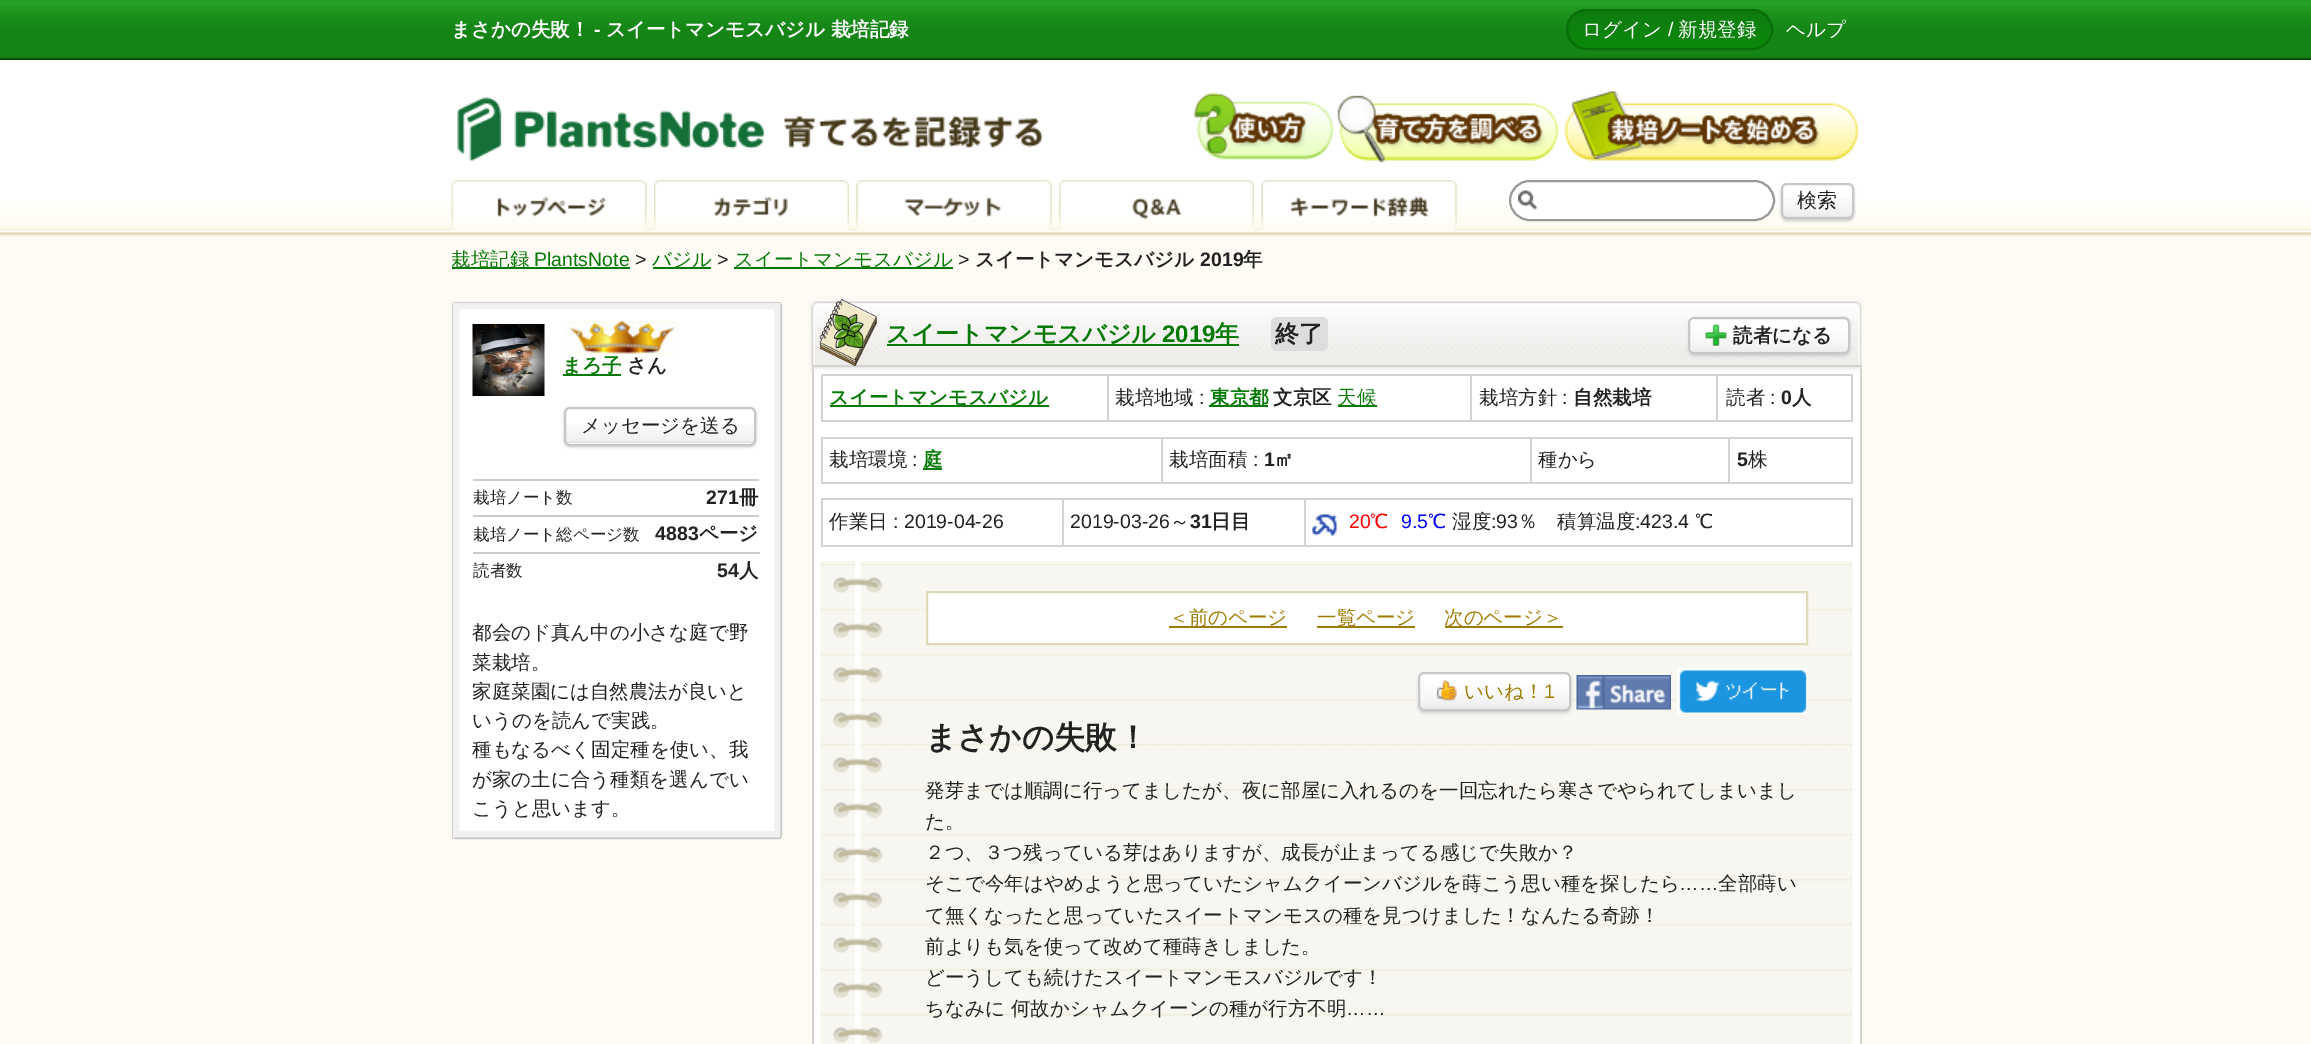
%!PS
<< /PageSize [2311 1044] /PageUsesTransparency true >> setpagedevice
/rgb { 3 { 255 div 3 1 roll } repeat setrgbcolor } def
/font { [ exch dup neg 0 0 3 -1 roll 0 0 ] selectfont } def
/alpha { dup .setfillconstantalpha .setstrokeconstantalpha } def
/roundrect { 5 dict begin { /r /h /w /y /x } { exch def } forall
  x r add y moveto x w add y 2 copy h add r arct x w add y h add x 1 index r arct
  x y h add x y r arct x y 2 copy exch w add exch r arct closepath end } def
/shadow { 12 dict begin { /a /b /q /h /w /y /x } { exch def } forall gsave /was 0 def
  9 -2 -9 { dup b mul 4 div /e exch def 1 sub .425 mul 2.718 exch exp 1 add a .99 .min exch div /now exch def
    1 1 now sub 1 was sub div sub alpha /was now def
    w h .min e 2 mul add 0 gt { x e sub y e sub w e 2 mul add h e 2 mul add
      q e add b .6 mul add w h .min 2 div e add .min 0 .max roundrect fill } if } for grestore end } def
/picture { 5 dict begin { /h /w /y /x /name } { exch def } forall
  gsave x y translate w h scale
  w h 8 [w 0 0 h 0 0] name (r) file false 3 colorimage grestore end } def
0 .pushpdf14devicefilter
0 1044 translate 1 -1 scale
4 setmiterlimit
254 251 245 rgb
0 0 2311 1044 rectfill
255 255 255 rgb
0 60 2311 143 rectfill
(img/1.rgb) 0 203 2311 34 picture
36 161 36 rgb
0 0 2311 6 rectfill
(img/2.rgb) 0 6 2311 54 picture
12 120 12 rgb
1566 9 207 41 20.5 roundrect fill
(img/3.rgb) 1566 12 207 36 picture
9 109 9 rgb
2 setlinewidth
1567 10 205 39 19.5 roundrect stroke
(img/4.rgb) 457 97 586 64 picture
(img/5.rgb) 1194 92 140 68 picture
(img/6.rgb) 1337 95 222 68 picture
(img/7.rgb) 1564 91 295 70 picture
(img/8.rgb) 451 180 196 51 picture
(img/9.rgb) 451 183 196 42 picture
(img/10.rgb) 654 180 195 51 picture
(img/11.rgb) 713 196 75 21 picture
(img/12.rgb) 856 180 196 51 picture
(img/13.rgb) 856 183 196 42 picture
(img/14.rgb) 1059 180 195 51 picture
(img/15.rgb) 1132 197 49 23 picture
(img/16.rgb) 1261 180 196 51 picture
(img/17.rgb) 1261 183 196 42 picture
255 255 255 rgb
1509 180 266 41 20.5 roundrect fill
(img/18.rgb) 1518 190 20 20 picture
153 153 153 rgb
1510 181 264 39 19.5 roundrect stroke
gsave
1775 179 moveto 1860 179 lineto 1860 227 lineto 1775 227 lineto closepath 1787 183 moveto 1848 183 lineto 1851.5 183 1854 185.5 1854 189 curveto 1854 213 lineto 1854 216.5 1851.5 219 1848 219 curveto 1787 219 lineto 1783.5 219 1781 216.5 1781 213 curveto 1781 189 lineto 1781 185.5 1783.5 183 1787 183 curveto closepath eoclip newpath
204 204 204 rgb
1781 185 73 36 6 1.5 1 shadow
grestore
(img/19.rgb) 1781 197 73 21 picture
199 199 199 rgb
1782 184 71 34 5 roundrect stroke
[
  [452 267 178 2 6 121 6]
  [653 267 58 2 6 121 6]
  [734 267 219 2 6 121 6]
] { aload pop rgb rectfill } forall
255 255 255 rgb
453 303 328 535 2 roundrect gsave fill grestore
203 203 203 rgb
stroke
241 241 241 rgb
6 setlinewidth
456 306 321 528 rectstroke
(img/20.rgb) 472 324 73 72 picture
(img/21.rgb) 565 321 113 33 picture
6 121 6 rgb
563 374 58 2 rectfill
gsave
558 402 moveto 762 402 lineto 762 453 lineto 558 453 lineto closepath 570 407 moveto 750 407 lineto 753.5 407 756 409.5 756 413 curveto 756 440 lineto 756 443.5 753.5 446 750 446 curveto 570 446 lineto 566.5 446 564 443.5 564 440 curveto 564 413 lineto 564 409.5 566.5 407 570 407 curveto closepath eoclip newpath
204 204 204 rgb
564 408 192 39 6 1.5 1 shadow
grestore
(img/22.rgb) 564 424 192 20 picture
199 199 199 rgb
2 setlinewidth
565 408 190 37 5 roundrect stroke
[
  [473 479 286 2 204 204 204]
  [473 515 286 2 204 204 204]
  [473 552 287 2 204 204 204]
  [814 302 1048 742 255 255 255]
  [1860 366 2 678 213 211 209]
  [812 366 2 678 213 211 209]
  [1716 374 137 2 213 211 209]
  [1851 374 2 48 213 211 209]
  [1716 420 137 2 213 211 209]
  [1716 374 2 48 213 211 209]
  [1470 374 248 2 213 211 209]
  [1470 420 248 2 213 211 209]
  [1470 374 2 48 213 211 209]
  [1107 374 365 2 213 211 209]
  [1107 420 365 2 213 211 209]
  [1107 374 2 48 213 211 209]
  [821 374 288 2 213 211 209]
  [821 420 288 2 213 211 209]
  [821 374 2 48 213 211 209]
] { aload pop rgb rectfill } forall
gsave
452 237 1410 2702 rectclip
221 221 221 rgb
812 303 1050 65 0 2 1 shadow
grestore
(img/23.rgb) 811 301 1051 65 picture
812 365 1050 2 rectfill
(img/24.rgb) 819 299 59 67 picture
(img/25.rgb) 832 313 32 36 picture
6 121 6 rgb
887 344 352 2 rectfill
221 221 221 rgb
1271 317 57 34 6 roundrect fill
204 204 204 rgb
1688 318 162 38 6 1.5 1 shadow
(img/26.rgb) 1687 317 163 36 picture
199 199 199 rgb
1689 318 160 35 5 roundrect stroke
(img/27.rgb) 1705 324 22 22 picture
[
  [830 405 219 2 6 121 6]
  [1209 405 59 2 6 121 6]
  [1338 405 39 2 6 121 6]
  [1728 437 125 2 213 211 209]
  [1851 437 2 46 213 211 209]
  [1728 482 125 2 213 211 209]
  [1728 437 2 46 213 211 209]
  [1530 437 200 2 213 211 209]
  [1530 482 200 2 213 211 209]
  [1530 437 2 46 213 211 209]
  [1161 437 371 2 213 211 209]
  [1161 482 371 2 213 211 209]
  [1161 437 2 46 213 211 209]
  [821 437 342 2 213 211 209]
  [821 482 342 2 213 211 209]
  [821 437 2 46 213 211 209]
  [923 468 19 2 6 121 6]
  [1304 498 549 2 213 211 209]
  [1851 498 2 48 213 211 209]
  [1304 545 549 2 213 211 209]
  [1304 498 2 48 213 211 209]
  [1062 498 243 2 213 211 209]
  [1062 545 243 2 213 211 209]
  [1062 498 2 48 213 211 209]
  [821 498 243 2 213 211 209]
  [821 545 243 2 213 211 209]
  [821 498 2 48 213 211 209]
] { aload pop rgb rectfill } forall
(img/28.rgb) 1312 514 25 22 picture
(img/29.rgb) 820 561 1033 483 picture
255 255 255 rgb
927 592 moveto 1807 592 lineto 1807 644 lineto 927 644 lineto closepath gsave fill grestore
223 219 184 rgb
stroke
[
  [1169 626 118 2 158 123 2]
  [1317 626 98 2 158 123 2]
  [1445 626 118 2 158 123 2]
] { aload pop rgb rectfill } forall
204 204 204 rgb
1418 674 153 39 6 1.5 1 shadow
(img/30.rgb) 1417 672 154 38 picture
199 199 199 rgb
1419 673 151 37 5 roundrect stroke
(img/31.rgb) 1436 680 21 22 picture
(img/32.rgb) 1576 675 95 35 picture
(img/33.rgb) 1677 667 131 47 picture
/WenQuanYiZenHei-Bold 19.5 font
255 255 255 rgb
451 36 moveto (まさかの失敗！) show
/LiberationSans-Bold 19.5 font
594 36 moveto (-) show
/WenQuanYiZenHei-Bold 19.5 font
606 36 moveto (スイートマンモスバジル 栽培記録) show
/WenQuanYiZenHei-Medium 19.5 font
1582 36 moveto (ログイン) show
/LiberationSans-Regular 19.5 font
1668 36 moveto (/) show
/WenQuanYiZenHei-Medium 19.5 font
1678 36 moveto (新規登録) show
1786 36 moveto (ヘルプ) show
/WenQuanYiZenHei-Medium 20 font
34 34 34 rgb
1797 207 moveto (検索) show
gsave
452 237 1410 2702 rectclip
/WenQuanYiZenHei-Medium 19.5 font
6 121 6 rgb
451 266 moveto (栽培記録) show
grestore
/LiberationSans-Regular 19.5 font
6 121 6 rgb
534 266 moveto (PlantsNote) show
34 34 34 rgb
635 266 moveto (>) show
/WenQuanYiZenHei-Medium 19.5 font
6 121 6 rgb
652 266 moveto (バジル) show
/LiberationSans-Regular 19.5 font
34 34 34 rgb
717 266 moveto (>) show
/WenQuanYiZenHei-Medium 19.5 font
6 121 6 rgb
734 266 moveto (スイートマンモスバジル) show
/LiberationSans-Regular 19.5 font
34 34 34 rgb
958 266 moveto (>) show
/WenQuanYiZenHei-Bold 19.5 font
975 266 moveto (スイートマンモスバジル) show
/LiberationSans-Bold 19.5 font
1200 266 moveto (2019) show
/WenQuanYiZenHei-Bold 19.5 font
1243 266 moveto (年) show
6 121 6 rgb
562 372 moveto (まろ子) show
34 34 34 rgb
627 372 moveto (さん) show
/WenQuanYiZenHei-Medium 19.5 font
581 432 moveto (メッセージを送る) show
/WenQuanYiZenHei-Medium 16.5 font
473 503 moveto (栽培ノート数) show
/LiberationSans-Bold 19.5 font
706 504 moveto (271) show
/WenQuanYiZenHei-Bold 19.5 font
739 504 moveto (冊) show
/WenQuanYiZenHei-Medium 16.5 font
473 540 moveto (栽培ノート総ページ数) show
/LiberationSans-Bold 19.5 font
655 540 moveto (4883) show
/WenQuanYiZenHei-Bold 19.5 font
699 540 moveto (ページ) show
/WenQuanYiZenHei-Medium 16.5 font
473 576 moveto (読者数) show
/LiberationSans-Bold 19.5 font
717 577 moveto (54) show
/WenQuanYiZenHei-Bold 19.5 font
739 577 moveto (人) show
/WenQuanYiZenHei-Medium 19.5 font
[
  [(都会のド真ん中の小さな庭で野) 472 639]
  [(菜栽培。) 472 669]
  [(家庭菜園には自然農法が良いと) 472 698]
  [(いうのを読んで実践。) 472 727]
  [(種もなるべく固定種を使い、我) 472 756]
  [(が家の土に合う種類を選んでい) 472 786]
  [(こうと思います。) 472 815]
] { aload pop moveto show } forall
/WenQuanYiZenHei-Bold 24 font
6 121 6 rgb
886 342 moveto (スイートマンモスバジル) show
/LiberationSans-Bold 24 font
1162 342 moveto (2019) show
/WenQuanYiZenHei-Bold 24 font
1215 342 moveto (年) show
34 34 34 rgb
1275 342 moveto (終了) show
/WenQuanYiZenHei-Bold 19.5 font
1733 342 moveto (読者になる) show
6 121 6 rgb
829 404 moveto (スイートマンモスバジル) show
/WenQuanYiZenHei-Medium 19.5 font
34 34 34 rgb
1115 404 moveto (栽培地域) show
/LiberationSans-Regular 19.5 font
1199 404 moveto (:) show
/WenQuanYiZenHei-Bold 19.5 font
6 121 6 rgb
1210 404 moveto (東京都) show
34 34 34 rgb
1273 404 moveto (文京区) show
/WenQuanYiZenHei-Medium 19.5 font
6 121 6 rgb
1337 404 moveto (天候) show
34 34 34 rgb
1479 404 moveto (栽培方針) show
/LiberationSans-Regular 19.5 font
1562 404 moveto (:) show
/WenQuanYiZenHei-Bold 19.5 font
1573 404 moveto (自然栽培) show
/WenQuanYiZenHei-Medium 19.5 font
1726 404 moveto (読者) show
/LiberationSans-Regular 19.5 font
1770 404 moveto (:) show
/LiberationSans-Bold 19.5 font
1781 404 moveto (0) show
/WenQuanYiZenHei-Bold 19.5 font
1792 404 moveto (人) show
/WenQuanYiZenHei-Medium 19.5 font
829 466 moveto (栽培環境) show
/LiberationSans-Regular 19.5 font
912 466 moveto (:) show
/WenQuanYiZenHei-Bold 19.5 font
6 121 6 rgb
923 466 moveto (庭) show
/WenQuanYiZenHei-Medium 19.5 font
34 34 34 rgb
1169 466 moveto (栽培面積) show
/LiberationSans-Regular 19.5 font
1253 466 moveto (:) show
/LiberationSans-Bold 19.5 font
1264 466 moveto (1) show
/WenQuanYiZenHei-Bold 19.5 font
1274 466 moveto (㎡) show
/WenQuanYiZenHei-Medium 19.5 font
1538 466 moveto (種から) show
/LiberationSans-Bold 19.5 font
1737 466 moveto (5) show
/WenQuanYiZenHei-Medium 19.5 font
1748 466 moveto (株) show
829 528 moveto (作業日) show
/LiberationSans-Regular 19.5 font
893 528 moveto (: 2019-04-26) show
1070 528 moveto (2019-03-26) show
/WenQuanYiZenHei-Medium 19.5 font
1170 528 moveto (～) show
/LiberationSans-Bold 19.5 font
1190 528 moveto (31) show
/WenQuanYiZenHei-Bold 19.5 font
1211 528 moveto (日目) show
/LiberationSans-Regular 19.5 font
255 0 0 rgb
1349 528 moveto (20) show
/WenQuanYiZenHei-Medium 19.5 font
1370 528 moveto (℃) show
/LiberationSans-Regular 19.5 font
0 0 255 rgb
1401 528 moveto (9.5) show
/WenQuanYiZenHei-Medium 19.5 font
1428 528 moveto (℃) show
34 34 34 rgb
1452 528 moveto (湿度) show
/LiberationSans-Regular 19.5 font
1491 528 moveto (:93) show
/WenQuanYiZenHei-Medium 19.5 font
1518 528 moveto (％　積算温度) show
/LiberationSans-Regular 19.5 font
1635 528 moveto (:423.4) show
/WenQuanYiZenHei-Medium 19.5 font
1695 528 moveto (℃) show
158 123 2 rgb
[
  [(＜前のページ) 1169 624]
  [(一覧ページ) 1317 624]
  [(次のページ＞) 1444 624]
  [(いいね！) 1464 698]
] { aload pop moveto show } forall
/LiberationSans-Regular 19.5 font
1544 698 moveto (1) show
/WenQuanYiZenHei-Bold 31.5 font
34 34 34 rgb
925 748 moveto (まさかの失敗！) show
/WenQuanYiZenHei-Medium 19.5 font
[
  [(発芽までは順調に行ってましたが、夜に部屋に入れるのを一回忘れたら寒さでやられてしまいまし) 925 797]
  [(た。) 925 828]
  [(２つ、３つ残っている芽はありますが、成長が止まってる感じで失敗か？) 925 859]
  [(そこで今年はやめようと思っていたシャムクイーンバジルを蒔こう思い種を探したら) 925 890]
] { aload pop moveto show } forall
/LiberationSans-Regular 19.5 font
1679 890 moveto (……) show
/WenQuanYiZenHei-Medium 19.5 font
[
  [(全部蒔い) 1718 890]
  [(て無くなったと思っていたスイートマンモスの種を見つけました！なんたる奇跡！) 925 922]
  [(前よりも気を使って改めて種蒔きしました。) 925 953]
  [(どーうしても続けたスイートマンモスバジルです！) 925 984]
  [(ちなみに 何故かシャムクイーンの種が行方不明) 925 1015]
] { aload pop moveto show } forall
/LiberationSans-Regular 19.5 font
1346 1015 moveto (……) show
.poppdf14devicefilter showpage
